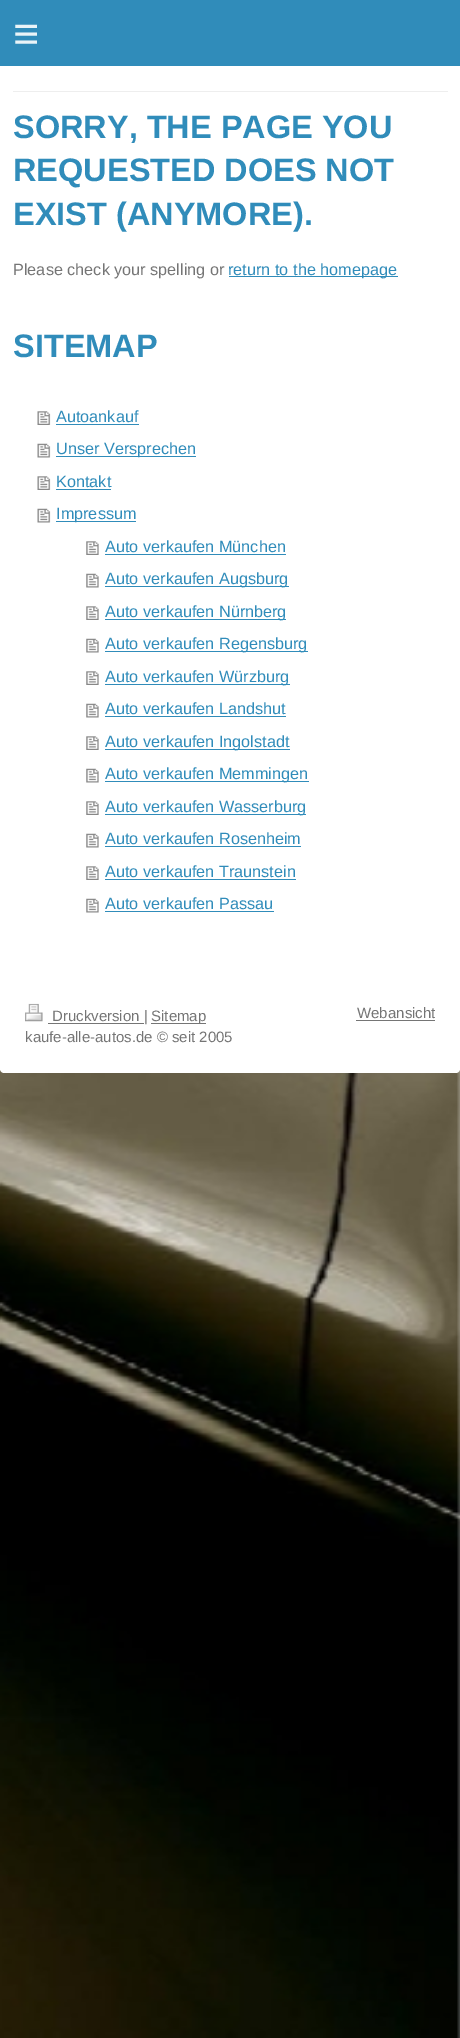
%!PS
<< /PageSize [460 2038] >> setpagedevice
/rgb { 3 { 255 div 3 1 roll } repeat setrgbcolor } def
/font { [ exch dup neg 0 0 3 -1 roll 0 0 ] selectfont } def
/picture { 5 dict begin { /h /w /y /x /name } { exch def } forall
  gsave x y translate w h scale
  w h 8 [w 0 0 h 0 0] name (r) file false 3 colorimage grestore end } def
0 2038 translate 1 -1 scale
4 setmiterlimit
255 255 255 rgb
0 0 460 2038 rectfill
(img/1.rgb) 0 1069 460 969 picture
0 0 moveto 460 0 lineto 460 1069 lineto 460 1071 458 1073 456 1073 curveto 4 1073 lineto 2 1073 0 1071 0 1069 curveto closepath fill
[
  [0 0 460 66 48 140 186]
  [13 91 435 1 238 238 238]
  [229 276 169 1 48 140 186]
] { aload pop rgb rectfill } forall
(img/2.rgb) 37 411 14 14 picture
56 424 83 1 rectfill
(img/3.rgb) 37 443 14 15 picture
56 456 140 1 rectfill
(img/2.rgb) 37 476 14 14 picture
56 489 55 1 rectfill
(img/3.rgb) 37 508 14 15 picture
56 521 80 1 rectfill
(img/4.rgb) 86 541 13 14 picture
105 554 181 1 rectfill
(img/5.rgb) 86 573 13 15 picture
105 586 184 1 rectfill
(img/4.rgb) 86 606 13 14 picture
105 619 181 1 rectfill
(img/5.rgb) 86 638 13 15 picture
105 651 203 1 rectfill
(img/4.rgb) 86 671 13 14 picture
105 684 185 1 rectfill
(img/5.rgb) 86 703 13 15 picture
105 716 181 1 rectfill
(img/4.rgb) 86 736 13 14 picture
105 749 185 1 rectfill
(img/5.rgb) 86 768 13 15 picture
105 781 204 1 rectfill
(img/4.rgb) 86 801 13 14 picture
105 814 201 1 rectfill
(img/5.rgb) 86 833 13 15 picture
105 846 196 1 rectfill
(img/4.rgb) 86 866 13 14 picture
105 879 191 1 rectfill
(img/5.rgb) 86 898 13 15 picture
105 911 169 1 rectfill
(img/6.rgb) 25 1003 18 19 picture
[
  [48 1023 96 1 117 117 117]
  [151 1023 55 1 117 117 117]
  [356 1020 79 1 117 117 117]
] { aload pop rgb rectfill } forall
/LiberationSans-Regular 45 font
234 244 248 rgb
13 49 moveto 13 0 (≡) ashow
/LiberationSans-Bold 32.5 font
48 140 186 rgb
[
  [(SORRY, THE PAGE YOU) 13 138]
  [(REQUESTED DOES NOT) 13 181]
  [(EXIST \(ANYMORE\).) 13 225]
] { aload pop moveto show } forall
/LiberationSans-Regular 16.25 font
117 117 117 rgb
13 275 moveto (Please check your spelling or) show
48 140 186 rgb
228 275 moveto (return to the homepage) show
/LiberationSans-Bold 32.5 font
13 357 moveto (SITEMAP) show
/LiberationSans-Regular 16.25 font
[
  [(Autoankauf) 56 422]
  [(Unser Versprechen) 56 454]
  [(Kontakt) 56 487]
  [(Impressum) 56 519]
  [(Auto verkaufen München) 105 552]
  [(Auto verkaufen Augsburg) 105 584]
  [(Auto verkaufen Nürnberg) 105 617]
  [(Auto verkaufen Regensburg) 105 649]
  [(Auto verkaufen Würzburg) 105 682]
  [(Auto verkaufen Landshut) 105 714]
  [(Auto verkaufen Ingolstadt) 105 747]
  [(Auto verkaufen Memmingen) 105 779]
  [(Auto verkaufen Wasserburg) 105 812]
  [(Auto verkaufen Rosenheim) 105 844]
  [(Auto verkaufen Traunstein) 105 877]
  [(Auto verkaufen Passau) 105 909]
] { aload pop moveto show } forall
/LiberationSans-Regular 15 font
117 117 117 rgb
[
  [(Druckversion |) 52 1021]
  [(Sitemap) 151 1021]
  [(kaufe-alle-autos.de © seit 2005) 25 1042]
  [(Webansicht) 357 1018]
] { aload pop moveto show } forall
showpage
